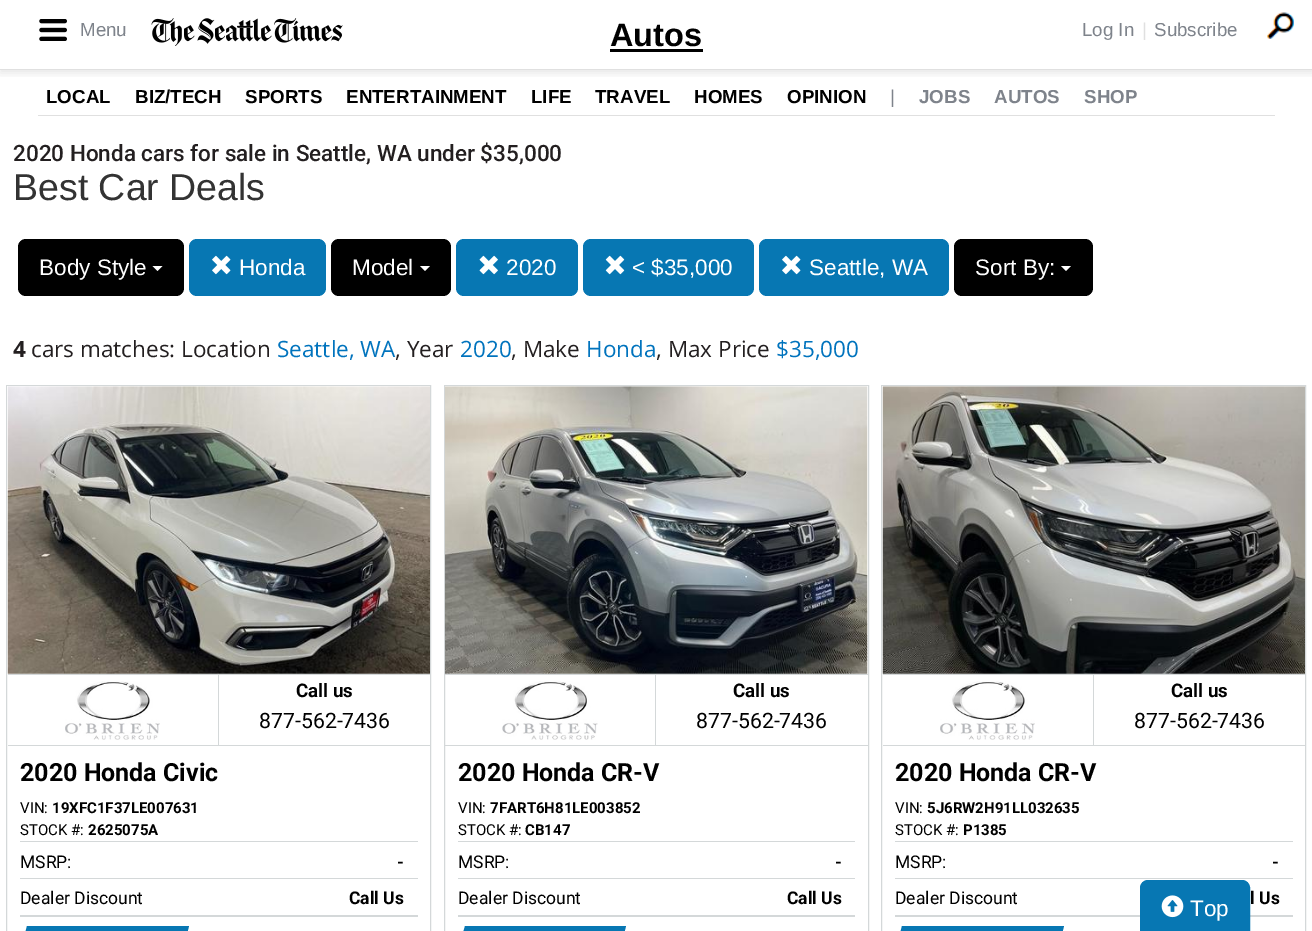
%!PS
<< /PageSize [1312 931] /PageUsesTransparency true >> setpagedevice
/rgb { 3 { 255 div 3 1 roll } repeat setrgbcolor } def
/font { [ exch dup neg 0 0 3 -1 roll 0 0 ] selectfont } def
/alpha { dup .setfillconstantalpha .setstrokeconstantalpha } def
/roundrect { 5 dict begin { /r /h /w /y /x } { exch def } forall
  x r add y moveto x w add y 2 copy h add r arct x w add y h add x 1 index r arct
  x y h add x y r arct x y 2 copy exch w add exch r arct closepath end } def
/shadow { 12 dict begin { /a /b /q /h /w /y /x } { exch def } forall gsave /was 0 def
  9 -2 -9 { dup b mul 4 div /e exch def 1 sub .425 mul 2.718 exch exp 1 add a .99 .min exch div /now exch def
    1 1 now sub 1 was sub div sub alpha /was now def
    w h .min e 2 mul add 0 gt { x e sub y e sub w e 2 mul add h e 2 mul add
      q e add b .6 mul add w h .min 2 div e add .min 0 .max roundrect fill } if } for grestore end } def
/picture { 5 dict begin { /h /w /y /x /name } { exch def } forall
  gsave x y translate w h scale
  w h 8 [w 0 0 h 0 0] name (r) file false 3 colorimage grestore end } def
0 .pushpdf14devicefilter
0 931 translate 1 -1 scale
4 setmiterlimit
255 255 255 rgb
0 0 1312 931 rectfill
gsave
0 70 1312 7 rectclip
0 0 0 rgb
0 3 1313 70 0 4.5 0.1 shadow
grestore
224 224 224 rgb
0 69 1312 1 rectfill
(img/1.rgb) 39 19 28 22 picture
(img/2.rgb) 151 18 192 28 picture
(img/3.rgb) 1267 12 27 27 picture
0 0 0 rgb
610 49 93 3 rectfill
224 224 224 rgb
38 115 1237 1 rectfill
0 0 0 rgb
18 239 166 57 8 roundrect fill
255 255 255 rgb
152.5 266 moveto 162.5 266 lineto 157.5 271 lineto closepath fill
7 119 179 rgb
189 239 137 57 8 roundrect fill
(img/4.rgb) 212 255 19 20 picture
0 0 0 rgb
331 239 120 57 8 roundrect fill
255 255 255 rgb
420 266 moveto 430 266 lineto 425 271 lineto closepath fill
7 119 179 rgb
456 239 122 57 8 roundrect fill
(img/5.rgb) 479 255 19 20 picture
583 239 171 57 8 roundrect fill
(img/6.rgb) 605 255 20 20 picture
759 239 190 57 8 roundrect fill
(img/4.rgb) 782 255 19 20 picture
0 0 0 rgb
954 239 139 57 8 roundrect fill
255 255 255 rgb
1061 266 moveto 1071 266 lineto 1066 271 lineto closepath fill
212 216 217 rgb
6.5 385.5 424 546 rectstroke
(img/7.rgb) 7 386 423 288 picture
[
  [8 674 422 1 212 216 217]
  [218 674 1 72 212 216 217]
  [8 745 422 1 212 216 217]
] { aload pop rgb rectfill } forall
(img/8.rgb) 65 681 95 59 picture
[
  [20 841 398 1 212 216 217]
  [20 878 398 1 212 216 217]
  [20 915 398 2 212 216 217]
] { aload pop rgb rectfill } forall
7 119 179 rgb
27 926 moveto 189 926 lineto 176 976 lineto 14 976 lineto closepath fill
212 216 217 rgb
444.5 385.5 424 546 rectstroke
(img/9.rgb) 445 386 423 288 picture
[
  [445 674 423 1 212 216 217]
  [655 674 1 72 212 216 217]
  [445 745 423 1 212 216 217]
] { aload pop rgb rectfill } forall
(img/10.rgb) 502 681 96 59 picture
[
  [458 841 397 1 212 216 217]
  [458 878 397 1 212 216 217]
  [458 915 397 2 212 216 217]
] { aload pop rgb rectfill } forall
7 119 179 rgb
465 926 moveto 626 926 lineto 613 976 lineto 451 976 lineto closepath fill
212 216 217 rgb
881.5 385.5 424 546 rectstroke
(img/11.rgb) 882 386 423 288 picture
[
  [883 674 422 1 212 216 217]
  [1093 674 1 72 212 216 217]
  [883 745 422 1 212 216 217]
] { aload pop rgb rectfill } forall
(img/12.rgb) 940 681 95 59 picture
[
  [895 841 398 1 212 216 217]
  [895 878 398 1 212 216 217]
  [895 915 398 2 212 216 217]
] { aload pop rgb rectfill } forall
7 119 179 rgb
902 926 moveto 1064 926 lineto 1051 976 lineto 889 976 lineto closepath fill
1140.5 880.5 109 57 7.5 roundrect gsave fill grestore
stroke
(img/13.rgb) 1161 895 23 23 picture
/LiberationSans-Regular 18.75 font
126 131 139 rgb
80 36 moveto (Menu) show
1082 36 moveto (Log In) show
224 224 224 rgb
1142 36 moveto (|) show
126 131 139 rgb
1154 36 moveto (Subscribe) show
/LiberationSans-Bold 32.5 font
0 0 0 rgb
610 46 moveto (Autos) show
/LiberationSans-Bold 18.75 font
[
  [(LOCAL) 46 103]
  [(BIZ/TECH) 135 103]
  [(SPORTS) 245 103]
  [(ENTERTAINMENT) 346 103]
  [(LIFE) 531 103]
  [(TRAVEL) 595 103]
  [(HOMES) 694 103]
  [(OPINION) 787 103]
] { aload pop moveto show } forall
/LiberationSans-Regular 18.75 font
126 131 139 rgb
890 103 moveto (|) show
/LiberationSans-Bold 18.75 font
[
  [(JOBS) 919 103]
  [(AUTOS) 994 103]
  [(SHOP) 1084 103]
] { aload pop moveto show } forall
/Roboto-Medium 22.5 font
35 31 32 rgb
13 161 moveto (2020 Honda cars for sale in Seattle, WA under $35,000) show
/LiberationSans-Regular 37.5 font
51 51 51 rgb
13 200 moveto (Best Car Deals) show
/LiberationSans-Regular 22.5 font
255 255 255 rgb
[
  [(Body Style) 39 275]
  [(Honda) 239 275]
  [(Model) 352 275]
  [(2020) 506 275]
  [(< $35,000) 632 275]
  [(Seattle, WA) 809 275]
  [(Sort By:) 975 275]
] { aload pop moveto show } forall
/OpenSans-Bold 22.5 font
35 31 32 rgb
13 357 moveto (4) show
/OpenSans-Regular 22.5 font
31 357 moveto (cars matches: Location) show
0 115 189 rgb
277 357 moveto (Seattle, WA) show
35 31 32 rgb
395 357 moveto (, Year) show
0 115 189 rgb
460 357 moveto (2020) show
35 31 32 rgb
511 357 moveto (, Make) show
0 115 189 rgb
586 357 moveto (Honda) show
35 31 32 rgb
656 357 moveto (, Max Price) show
0 115 189 rgb
776 357 moveto ($35,000) show
/Roboto-Bold 18.75 font
0 0 0 rgb
296 697 moveto (Call us) show
/Roboto-Regular 21.25 font
259 728 moveto (877-562-7436) show
/Roboto-Bold 25 font
20 781 moveto (2020 Honda Civic) show
/Roboto-Regular 15 font
20 813 moveto (VIN:) show
/Roboto-Bold 15 font
52 813 moveto (19XFC1F37LE007631) show
/Roboto-Regular 15 font
20 835 moveto (STOCK #:) show
/Roboto-Bold 15 font
88 835 moveto (2625075A) show
/Roboto-Regular 17.5 font
20 868 moveto (MSRP:) show
/Roboto-Bold 17.5 font
397 868 moveto (-) show
/Roboto-Regular 17.5 font
20 904 moveto (Dealer Discount) show
/Roboto-Bold 17.5 font
349 904 moveto (Call Us) show
/Roboto-Bold 18.75 font
733 697 moveto (Call us) show
/Roboto-Regular 21.25 font
696 728 moveto (877-562-7436) show
/Roboto-Bold 25 font
458 781 moveto (2020 Honda CR-V) show
/Roboto-Regular 15 font
458 813 moveto (VIN:) show
/Roboto-Bold 15 font
490 813 moveto (7FART6H81LE003852) show
/Roboto-Regular 15 font
458 835 moveto (STOCK #:) show
/Roboto-Bold 15 font
525 835 moveto (CB147) show
/Roboto-Regular 17.5 font
458 868 moveto (MSRP:) show
/Roboto-Bold 17.5 font
835 868 moveto (-) show
/Roboto-Regular 17.5 font
458 904 moveto (Dealer Discount) show
/Roboto-Bold 17.5 font
787 904 moveto (Call Us) show
/Roboto-Bold 18.75 font
1171 697 moveto (Call us) show
/Roboto-Regular 21.25 font
1134 728 moveto (877-562-7436) show
/Roboto-Bold 25 font
895 781 moveto (2020 Honda CR-V) show
/Roboto-Regular 15 font
895 813 moveto (VIN:) show
/Roboto-Bold 15 font
927 813 moveto (5J6RW2H91LL032635) show
/Roboto-Regular 15 font
895 835 moveto (STOCK #:) show
/Roboto-Bold 15 font
963 835 moveto (P1385) show
/Roboto-Regular 17.5 font
895 868 moveto (MSRP:) show
/Roboto-Bold 17.5 font
1272 868 moveto (-) show
/Roboto-Regular 17.5 font
895 904 moveto (Dealer Discount) show
/Roboto-Bold 17.5 font
1250 904 moveto (l Us) show
/LiberationSans-Regular 22.5 font
255 255 255 rgb
1190 916 moveto (Top) show
.poppdf14devicefilter showpage
